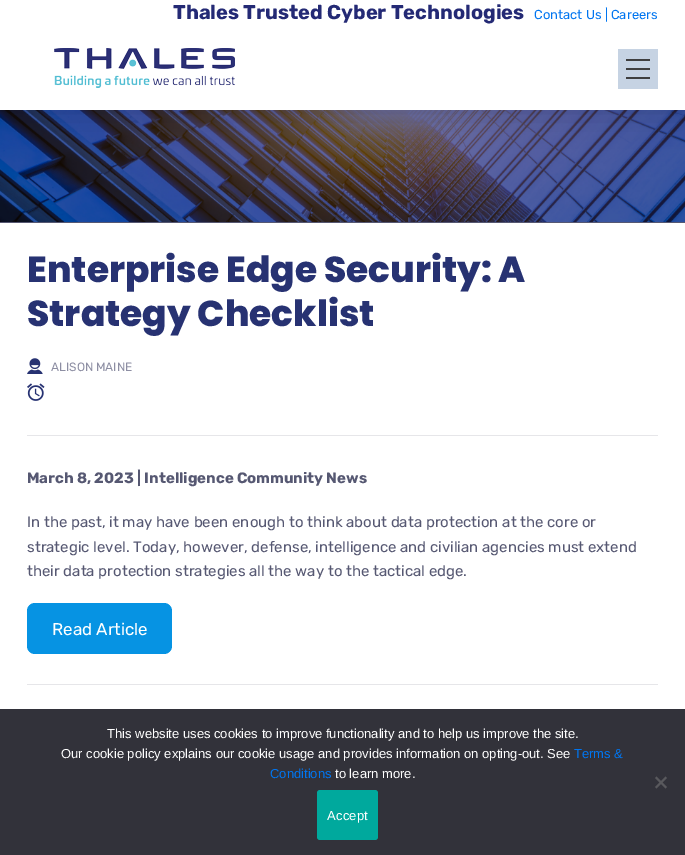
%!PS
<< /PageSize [685 855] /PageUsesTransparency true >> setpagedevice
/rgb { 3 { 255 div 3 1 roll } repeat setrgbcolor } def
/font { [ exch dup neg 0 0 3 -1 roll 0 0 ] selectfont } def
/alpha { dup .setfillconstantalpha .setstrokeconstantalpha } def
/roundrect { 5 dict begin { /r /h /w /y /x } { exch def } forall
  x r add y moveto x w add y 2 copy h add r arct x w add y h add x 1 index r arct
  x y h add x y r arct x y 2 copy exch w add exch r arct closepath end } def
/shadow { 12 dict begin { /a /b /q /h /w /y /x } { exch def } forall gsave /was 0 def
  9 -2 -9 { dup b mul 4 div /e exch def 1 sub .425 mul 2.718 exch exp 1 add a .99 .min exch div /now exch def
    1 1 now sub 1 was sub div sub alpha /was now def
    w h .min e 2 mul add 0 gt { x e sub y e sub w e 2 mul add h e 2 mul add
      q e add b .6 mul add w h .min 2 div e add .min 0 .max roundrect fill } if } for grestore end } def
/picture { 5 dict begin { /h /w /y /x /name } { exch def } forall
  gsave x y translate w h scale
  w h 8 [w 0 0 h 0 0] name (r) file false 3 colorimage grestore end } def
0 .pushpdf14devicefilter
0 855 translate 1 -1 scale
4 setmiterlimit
255 255 255 rgb
0 0 685 855 rectfill
(img/2.rgb) 0 110 685 112 picture
2 6 32 rgb
0 27 685 83 0 17.5 0.2 shadow
255 255 255 rgb
0 0 685 110 rectfill
(img/1.rgb) 54 48 181 40 picture
[
  [618 49 40 40 198 211 227]
  [626 59 24 2 63 63 63]
  [626 77 24 2 63 63 63]
  [626 68 24 2 63 63 63]
  [0 222 685 1 86 88 114]
  [27 435 631 1 230 230 233]
] { aload pop rgb rectfill } forall
(img/3.rgb) 27 358 16 16 picture
(img/4.rgb) 27 383 18 18 picture
6 147 227 rgb
27 603 145 51 8 roundrect fill
230 230 233 rgb
27 684 631 1 rectfill
50 50 58 rgb
0 709 685 146 rectfill
89 89 93 rgb
665.5 776.5 moveto 667 778 lineto 656.5 788.5 lineto 655 787 lineto closepath fill
655 778 moveto 656.5 776.5 lineto 667 787 lineto 665.5 788.5 lineto closepath fill
0 169 157 rgb
317 790 61 50 3 roundrect fill
/Rubik-Bold 20 font
36 42 117 rgb
173 19 moveto (Thales Trusted Cyber Technologies) show
/Rubik-Regular 13 font
0 117 240 rgb
534 19 moveto (Contact Us | Careers) show
/Poppins-ExtraBold 36 font
39 50 114 rgb
27 282 moveto (Enterprise Edge Security: A) show
27 326 moveto (Strategy Checklist) show
/Rubik-Regular 12 font
141 142 163 rgb
51 371 moveto (ALISON MAINE) show
/Rubik-Bold 15 font
86 88 114 rgb
27 483 moveto (March 8, 2023 | Intelligence Community News) show
/Rubik-Regular 15 font
[
  [(In the past, it may have been enough to think about data protection at the core or) 27 527]
  [(strategic level. Today, however, defense, intelligence and civilian agencies must extend) 27 552]
  [(their data protection strategies all the way to the tactical edge.) 27 576]
] { aload pop moveto show } forall
/Rubik-Regular 17 font
255 255 255 rgb
52 635 moveto (Read Article) show
/LiberationSans-Regular 13 font
107 738 moveto (This website uses cookies to improve functionality and to help us improve the site.) show
61 758 moveto (Our cookie policy explains our cookie usage and provides information on opting-out. See) show
0 117 240 rgb
574 758 moveto (Terms &) show
270 778 moveto (Conditions) show
255 255 255 rgb
335 778 moveto (to learn more.) show
327 820 moveto 0.25 0 (Accept) ashow
.poppdf14devicefilter showpage
